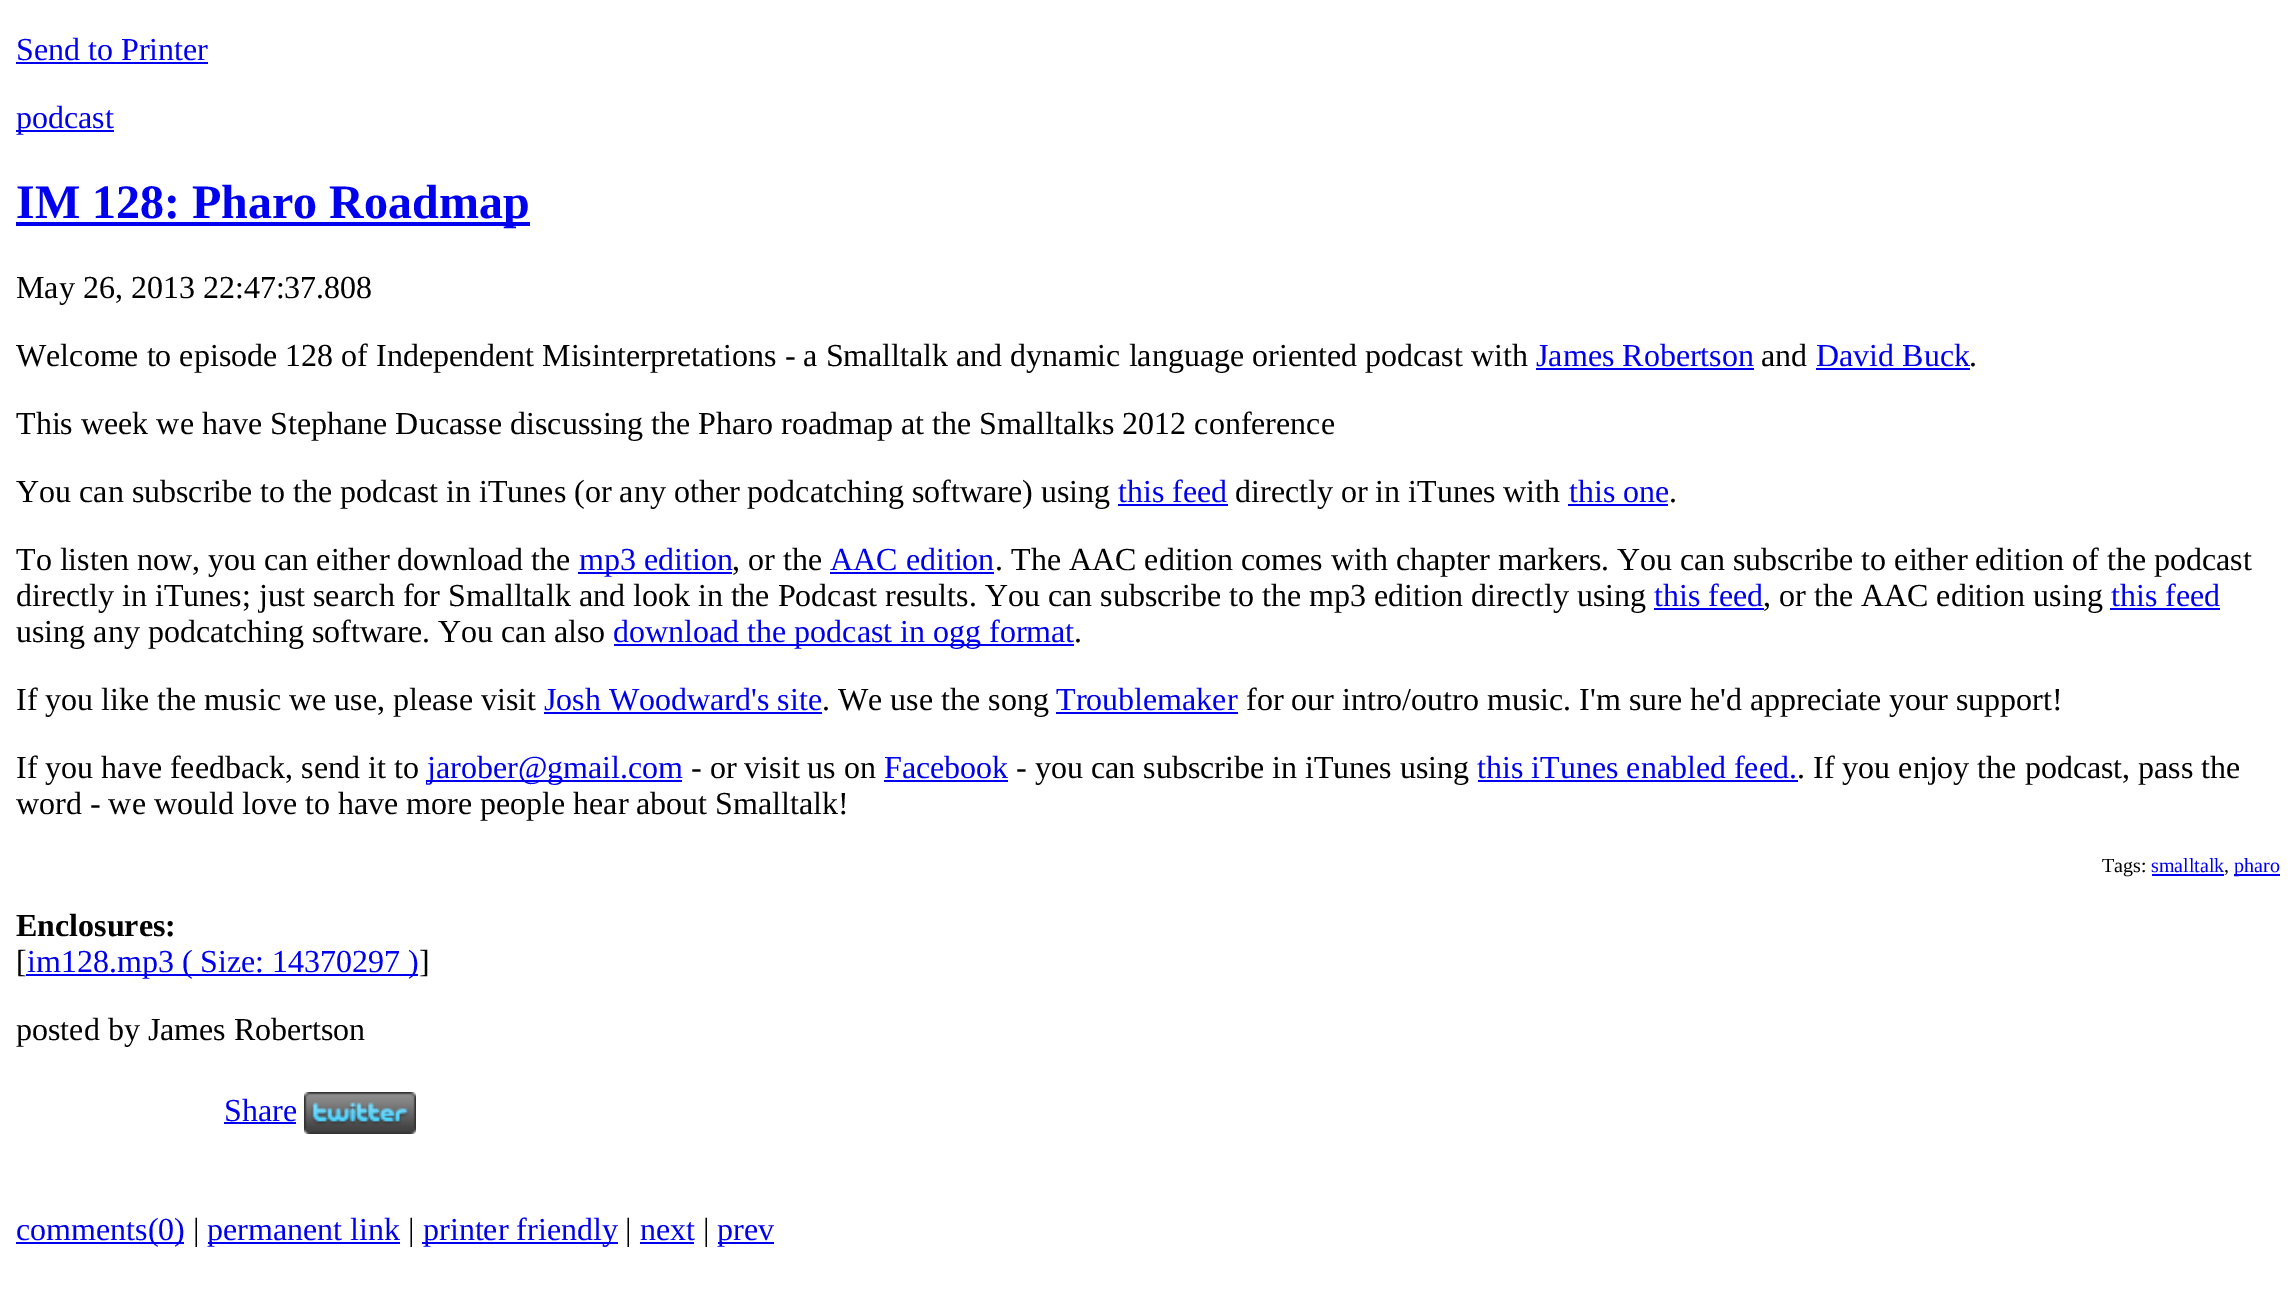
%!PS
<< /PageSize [2295 1292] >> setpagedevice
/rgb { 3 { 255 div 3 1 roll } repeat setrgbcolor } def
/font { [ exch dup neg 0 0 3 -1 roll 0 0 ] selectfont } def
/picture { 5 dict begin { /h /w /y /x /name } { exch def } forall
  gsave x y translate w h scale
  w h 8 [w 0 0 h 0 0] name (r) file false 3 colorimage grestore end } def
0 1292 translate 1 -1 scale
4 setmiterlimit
255 255 255 rgb
0 0 2295 1292 rectfill
[
  [16 62 192 2 0 0 238]
  [16 130 98 2 0 0 238]
  [16 222 514 4 0 0 238]
  [1536 368 218 2 0 0 238]
  [1816 368 154 2 0 0 238]
  [1118 504 110 2 0 0 238]
  [1568 504 100 2 0 0 238]
  [578 572 154 2 0 0 238]
  [830 572 164 2 0 0 238]
  [1654 608 110 2 0 0 238]
  [2110 608 110 2 0 0 238]
  [614 644 460 2 0 0 238]
  [544 712 278 2 0 0 238]
  [1056 712 182 2 0 0 238]
  [426 780 256 2 0 0 238]
  [884 780 124 2 0 0 238]
  [1478 780 320 2 0 0 238]
  [2152 874 72 2 0 0 238]
  [2234 874 46 2 0 0 238]
  [26 974 392 2 0 0 238]
  [224 1122 72 2 0 0 238]
] { aload pop rgb rectfill } forall
(img/1.rgb) 304 1092 112 42 picture
[
  [16 1242 168 2 0 0 238]
  [208 1242 192 2 0 0 238]
  [422 1242 196 2 0 0 238]
  [640 1242 54 2 0 0 238]
  [718 1242 56 2 0 0 238]
] { aload pop rgb rectfill } forall
/LiberationSerif-Regular 32 font
16 60 moveto (Send to Printer) show
16 128 moveto (podcast) show
/LiberationSerif-Bold 48 font
16 218 moveto (IM 128: Pharo Roadmap) show
/LiberationSerif-Regular 32 font
0 0 0 rgb
16 298 moveto (May 26, 2013 22:47:37.808) show
16 366 moveto (Welcome to episode 128 of Independent Misinterpretations - a Smalltalk and dynamic language oriented podcast with) show
0 0 238 rgb
1536 366 moveto (James Robertson) show
0 0 0 rgb
1761 366 moveto (and) show
0 0 238 rgb
1816 366 moveto (David Buck) show
0 0 0 rgb
[
  [(.) 1969 366]
  [(This week we have Stephane Ducasse discussing the Pharo roadmap at the Smalltalks 2012 conference) 16 434]
  [(You can subscribe to the podcast in iTunes \(or any other podcatching software\) using) 16 502]
] { aload pop moveto show } forall
0 0 238 rgb
1118 502 moveto (this feed) show
0 0 0 rgb
1235 502 moveto (directly or in iTunes with) show
0 0 238 rgb
1569 502 moveto (this one) show
0 0 0 rgb
1669 502 moveto (.) show
16 570 moveto (To listen now, you can either download the) show
0 0 238 rgb
579 570 moveto (mp3 edition) show
0 0 0 rgb
732 570 moveto (, or the) show
0 0 238 rgb
830 570 moveto (AAC edition) show
0 0 0 rgb
995 570 moveto (. The AAC edition comes with chapter markers. You can subscribe to either edition of the podcast) show
16 606 moveto (directly in iTunes; just search for Smalltalk and look in the Podcast results. You can subscribe to the mp3 edition directly using) show
0 0 238 rgb
1654 606 moveto (this feed) show
0 0 0 rgb
1763 606 moveto (, or the AAC edition using) show
0 0 238 rgb
2111 606 moveto (this feed) show
0 0 0 rgb
16 642 moveto (using any podcatching software. You can also) show
0 0 238 rgb
613 642 moveto (download the podcast in ogg format) show
0 0 0 rgb
1074 642 moveto (.) show
16 710 moveto (If you like the music we use, please visit) show
0 0 238 rgb
544 710 moveto (Josh Woodward's site) show
0 0 0 rgb
822 710 moveto (. We use the song) show
0 0 238 rgb
1056 710 moveto (Troublemaker) show
0 0 0 rgb
1246 710 moveto (for our intro/outro music. I'm sure he'd appreciate your support!) show
16 778 moveto (If you have feedback, send it to) show
0 0 238 rgb
427 778 moveto (jarober@gmail.com) show
0 0 0 rgb
691 778 moveto (- or visit us on) show
0 0 238 rgb
884 778 moveto (Facebook) show
0 0 0 rgb
1016 778 moveto (- you can subscribe in iTunes using) show
0 0 238 rgb
1477 778 moveto (this iTunes enabled feed.) show
0 0 0 rgb
1797 778 moveto (. If you enjoy the podcast, pass the) show
16 814 moveto (word - we would love to have more people hear about Smalltalk!) show
/LiberationSerif-Regular 20 font
2102 872 moveto (Tags:) show
0 0 238 rgb
2151 872 moveto (smalltalk) show
0 0 0 rgb
2224 872 moveto (,) show
0 0 238 rgb
2234 872 moveto (pharo) show
/LiberationSerif-Bold 32 font
0 0 0 rgb
16 936 moveto (Enclosures:) show
/LiberationSerif-Regular 32 font
16 972 moveto ([) show
0 0 238 rgb
27 972 moveto (im128.mp3 \( Size: 14370297 \)) show
0 0 0 rgb
419 972 moveto (]) show
16 1040 moveto (posted by James Robertson) show
0 0 238 rgb
224 1121 moveto (Share) show
16 1240 moveto (comments\(0\)) show
0 0 0 rgb
193 1240 moveto (|) show
0 0 238 rgb
207 1240 moveto (permanent link) show
0 0 0 rgb
408 1240 moveto (|) show
0 0 238 rgb
423 1240 moveto (printer friendly) show
0 0 0 rgb
625 1240 moveto (|) show
0 0 238 rgb
640 1240 moveto (next) show
0 0 0 rgb
703 1240 moveto (|) show
0 0 238 rgb
717 1240 moveto (prev) show
showpage
